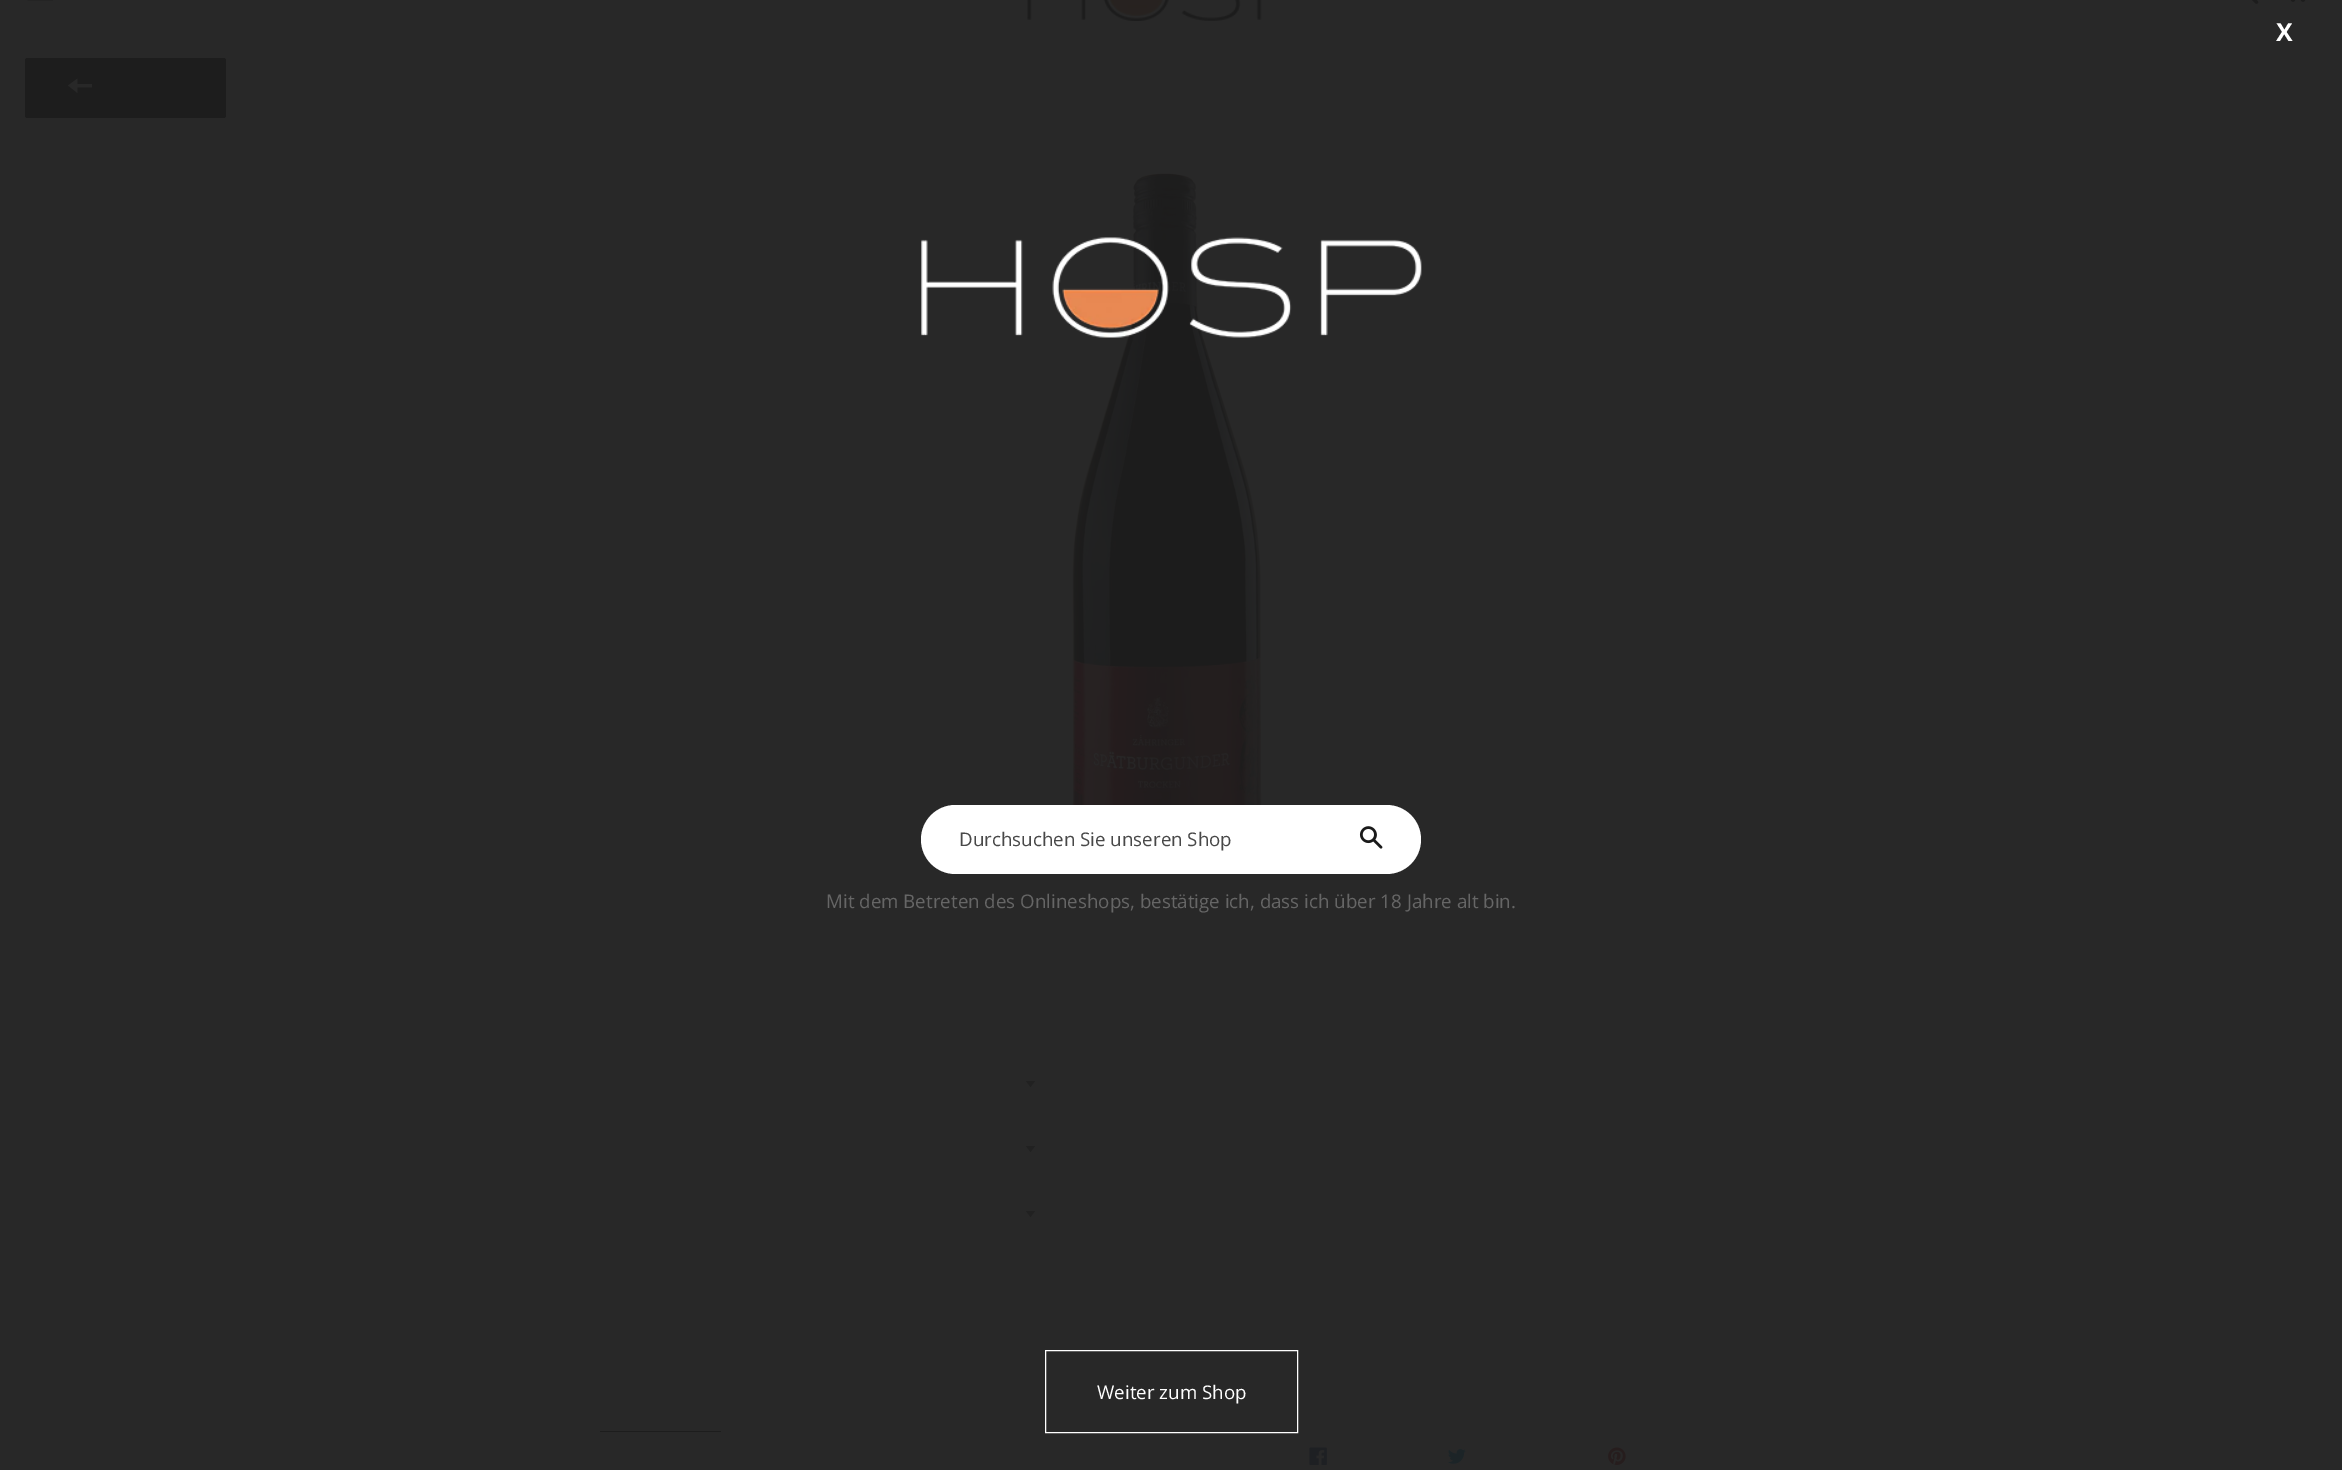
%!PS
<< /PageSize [2342 1470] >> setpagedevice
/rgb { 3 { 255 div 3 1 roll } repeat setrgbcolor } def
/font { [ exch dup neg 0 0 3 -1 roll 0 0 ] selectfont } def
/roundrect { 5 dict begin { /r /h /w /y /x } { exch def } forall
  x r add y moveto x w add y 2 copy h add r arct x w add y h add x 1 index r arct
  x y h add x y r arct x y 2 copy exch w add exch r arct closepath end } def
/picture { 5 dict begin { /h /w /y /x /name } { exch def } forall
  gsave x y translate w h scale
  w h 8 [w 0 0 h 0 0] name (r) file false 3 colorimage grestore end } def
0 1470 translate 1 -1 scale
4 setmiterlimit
40 40 40 rgb
0 0 2342 1470 rectfill
(img/1.rgb) 27 0 27 1 picture
(img/2.rgb) 1027 0 235 21 picture
(img/3.rgb) 2252 0 7 4 picture
(img/4.rgb) 2290 0 16 2 picture
29 29 29 rgb
25 58 201 60 2.5 roundrect fill
40 40 40 rgb
77.5 84 moveto 77.5 78.5 lineto 68 85.5 lineto 77.5 93 lineto 77.5 87.5 lineto 92 87.5 lineto 92 84 lineto closepath fill
(img/5.rgb) 1071 173 195 632 picture
33 33 33 rgb
1026 1081 moveto 1030.5 1087 lineto 1035 1081 lineto closepath fill
1026 1146 moveto 1030.5 1152 lineto 1035 1146 lineto closepath fill
1026 1211 moveto 1030.5 1217 lineto 1035 1211 lineto closepath fill
29 29 29 rgb
600 1431 121 1 rectfill
(img/6.rgb) 1309 1447 18 18 picture
(img/7.rgb) 1448 1449 18 15 picture
(img/8.rgb) 1608 1447 18 18 picture
(img/9.rgb) 921 237 501 101 picture
255 255 255 rgb
921 805 500 69 34.5 roundrect fill
(img/10.rgb) 1359 826 24 23 picture
1045.5 1350.5 252 82 rectstroke
/OpenSans-Bold 25 font
2276 41 moveto (X) show
/OpenSans-Regular 18.75 font
72 72 72 rgb
959 846 moveto (Durchsuchen Sie unseren Shop) show
102 102 102 rgb
826 908 moveto (Mit dem Betreten des Onlineshops, bestätige ich, dass ich über 18 Jahre alt bin.) show
255 255 255 rgb
1097 1399 moveto (Weiter zum Shop) show
showpage
